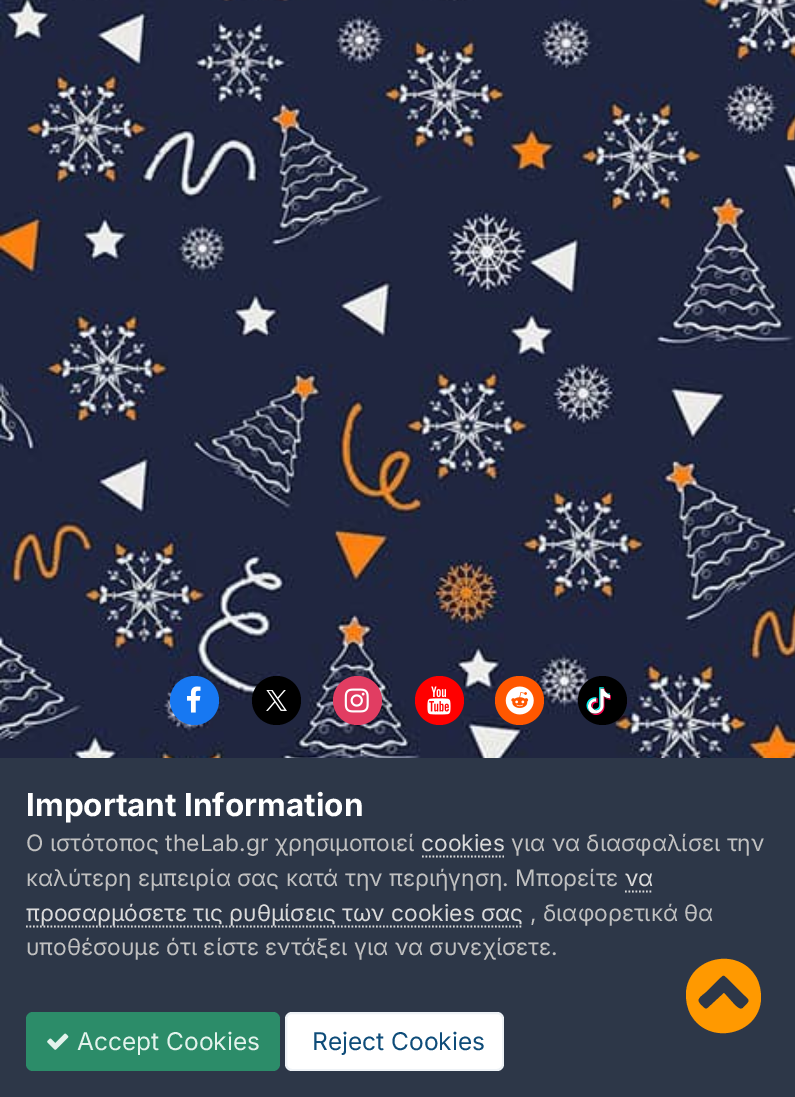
%!PS
<< /PageSize [795 1097] /PageUsesTransparency true >> setpagedevice
/rgb { 3 { 255 div 3 1 roll } repeat setrgbcolor } def
/font { [ exch dup neg 0 0 3 -1 roll 0 0 ] selectfont } def
/alpha { dup .setfillconstantalpha .setstrokeconstantalpha } def
/circle { newpath 0 360 arc closepath } def
/roundrect { 5 dict begin { /r /h /w /y /x } { exch def } forall
  x r add y moveto x w add y 2 copy h add r arct x w add y h add x 1 index r arct
  x y h add x y r arct x y 2 copy exch w add exch r arct closepath end } def
/picture { 5 dict begin { /h /w /y /x /name } { exch def } forall
  gsave x y translate w h scale
  w h 8 [w 0 0 h 0 0] name (r) file false 3 colorimage grestore end } def
0 .pushpdf14devicefilter
0 1097 translate 1 -1 scale
4 setmiterlimit
255 255 255 rgb
0 0 795 1097 rectfill
(img/1.rgb) 0 0 795 758 picture
23 120 242 rgb
194.5 700.5 24.5 circle fill
(img/2.rgb) 187 686 14 27 picture
0 0 0 rgb
276.5 700.5 24.5 circle fill
(img/3.rgb) 266 690 21 21 picture
225 61 98 rgb
357.5 700.5 24.5 circle fill
(img/4.rgb) 344 688 25 25 picture
255 0 0 rgb
439.5 700.5 24.5 circle fill
(img/5.rgb) 427 686 24 29 picture
255 87 0 rgb
519.5 700.5 24.5 circle fill
(img/6.rgb) 505 686 29 29 picture
0 0 0 rgb
602.5 700.5 24.5 circle fill
(img/7.rgb) 586 687 25 28 picture
45 55 72 rgb
0 758 795 339 rectfill
218 218 218 rgb
1.8 setlinewidth
[1.75 1.75] 0 setdash
422 856.5 moveto 504 856.5 lineto stroke
625 891.5 moveto 653 891.5 lineto stroke
26 926.5 moveto 523 926.5 lineto stroke
44 140 105 rgb
26 1012 254 59 7 roundrect fill
(img/8.rgb) 47 1033 22 17 picture
255 255 255 rgb
285 1012 219 59 7 roundrect fill
0.07 alpha
14 76 121 rgb
2 setlinewidth
[] 0 setdash
286 1013 217 57 6 roundrect stroke
1 alpha
255 153 0 rgb
743 1008 moveto 752 999 750 1001 740 991 curveto 729 980 lineto 723 974 724 974 718 980 curveto 707 991 lineto 700 997 695 999 701 1005 curveto 706 1010 706 1010 711 1005 curveto 724 993 lineto 733 1003 lineto 735 1005 740 1011 743 1008 curveto closepath 756 977 moveto 760 984 761 991 761 999 curveto 759 1035 709 1046 691 1015 curveto 687 1008 686 1001 686 993 curveto 688 957 738 946 756 977 curveto closepath fill
/Inter-Bold 31.5 font
255 255 255 rgb
26 816 moveto (Important Information) show
/Inter-Regular 22.75 font
192 192 192 rgb
26 851 moveto (Ο ιστότοπος theLab.gr χρησιμοποιεί) show
218 218 218 rgb
421 851 moveto (cookies) show
192 192 192 rgb
511 851 moveto (για να διασφαλίσει την) show
26 886 moveto (καλύτερη εμπειρία σας κατά την περιήγηση. Μπορείτε) show
218 218 218 rgb
625 886 moveto (να) show
26 921 moveto (προσαρμόσετε τις ρυθμίσεις των cookies σας) show
192 192 192 rgb
530 921 moveto (, διαφορετικά θα) show
26 955 moveto (υποθέσουμε ότι είστε εντάξει για να συνεχίσετε.) show
/Inter-Regular 24.5 font
227 243 236 rgb
77 1050 moveto (Accept Cookies) show
14 76 121 rgb
312 1050 moveto (Reject Cookies) show
.poppdf14devicefilter showpage
